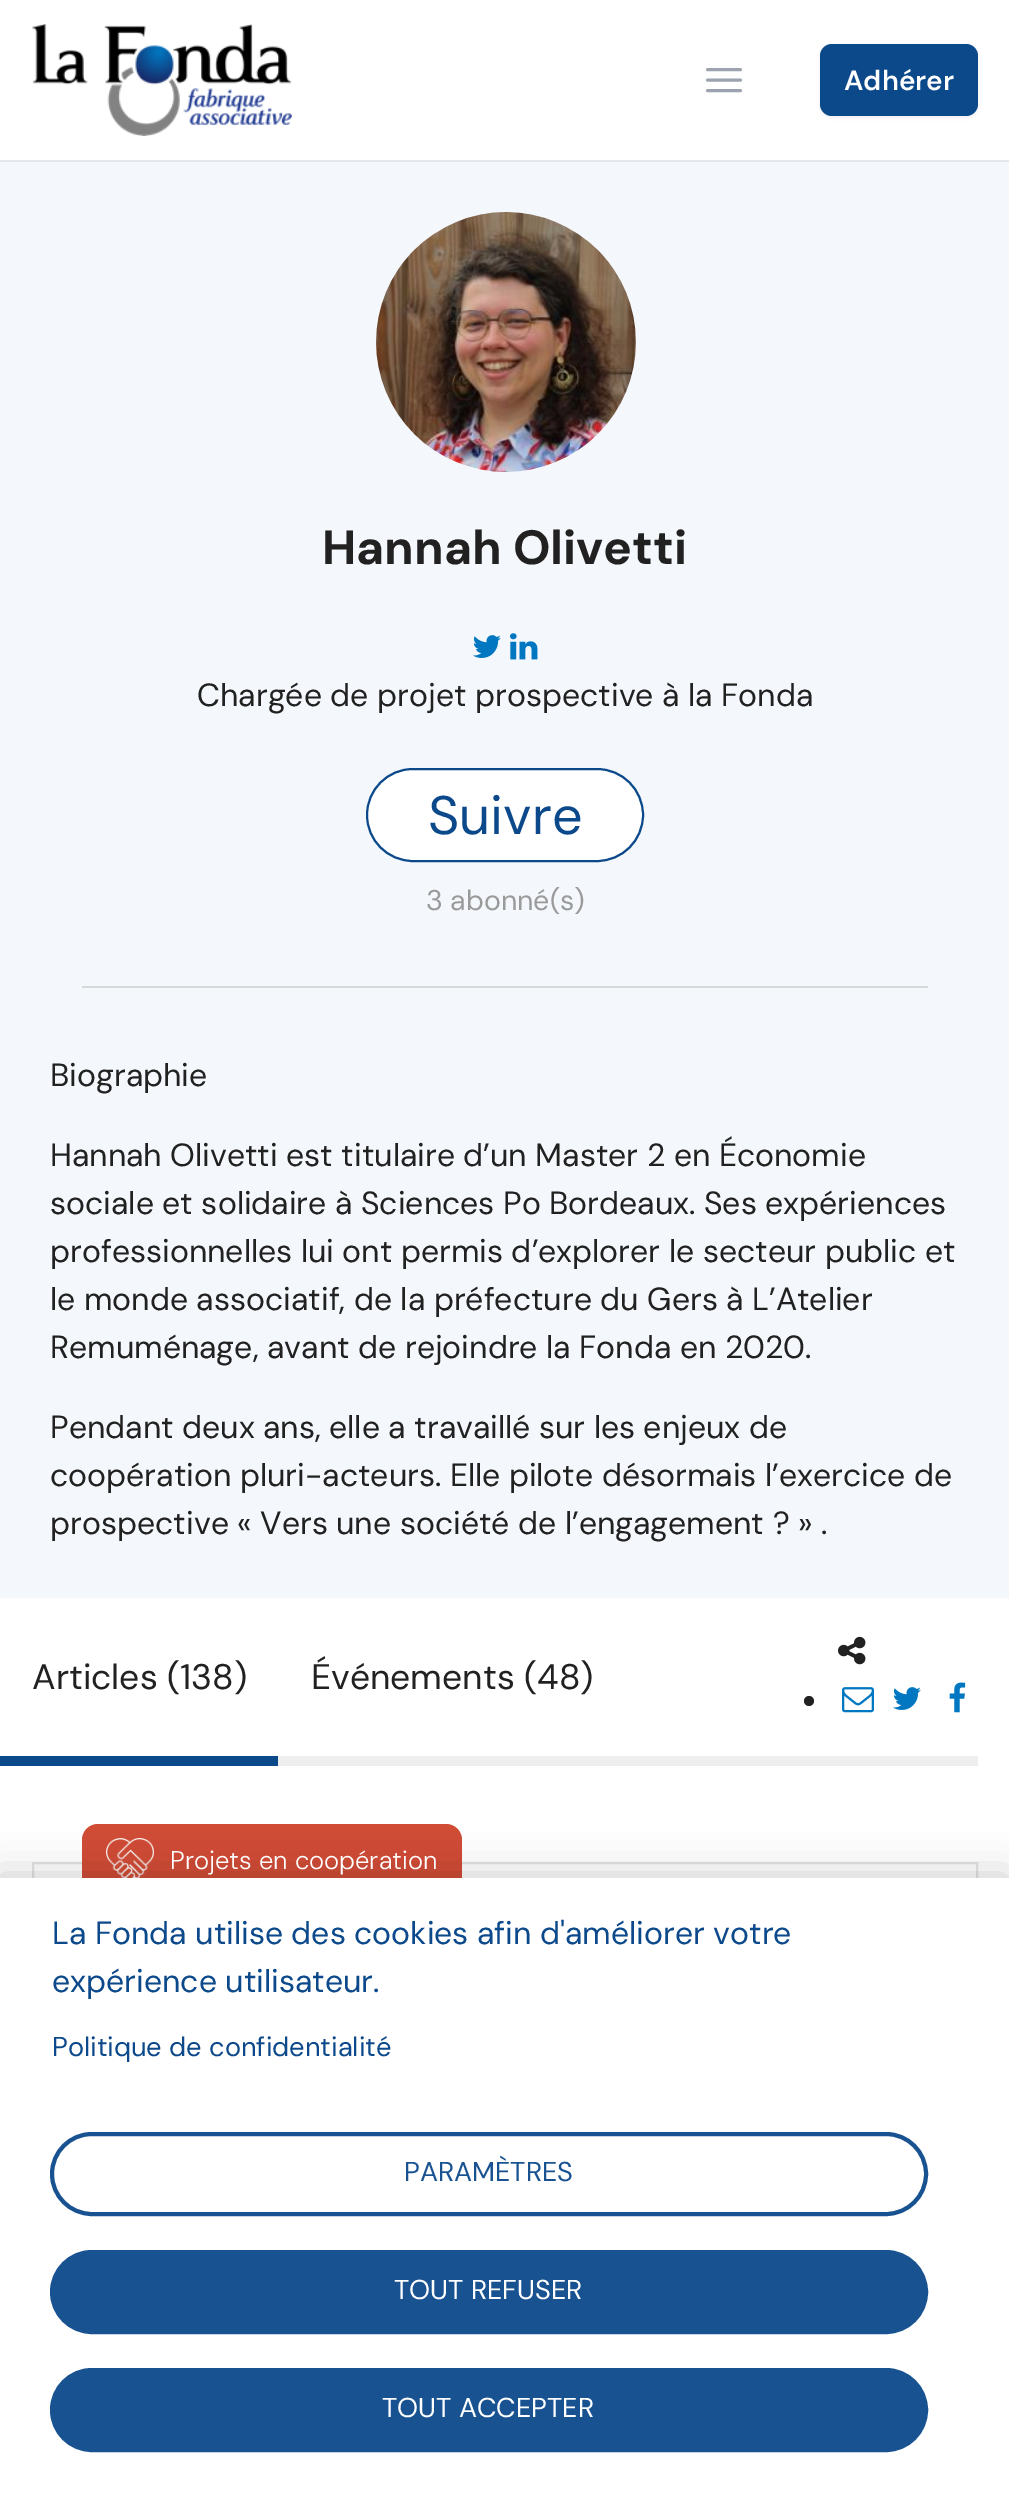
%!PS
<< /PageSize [1009 2499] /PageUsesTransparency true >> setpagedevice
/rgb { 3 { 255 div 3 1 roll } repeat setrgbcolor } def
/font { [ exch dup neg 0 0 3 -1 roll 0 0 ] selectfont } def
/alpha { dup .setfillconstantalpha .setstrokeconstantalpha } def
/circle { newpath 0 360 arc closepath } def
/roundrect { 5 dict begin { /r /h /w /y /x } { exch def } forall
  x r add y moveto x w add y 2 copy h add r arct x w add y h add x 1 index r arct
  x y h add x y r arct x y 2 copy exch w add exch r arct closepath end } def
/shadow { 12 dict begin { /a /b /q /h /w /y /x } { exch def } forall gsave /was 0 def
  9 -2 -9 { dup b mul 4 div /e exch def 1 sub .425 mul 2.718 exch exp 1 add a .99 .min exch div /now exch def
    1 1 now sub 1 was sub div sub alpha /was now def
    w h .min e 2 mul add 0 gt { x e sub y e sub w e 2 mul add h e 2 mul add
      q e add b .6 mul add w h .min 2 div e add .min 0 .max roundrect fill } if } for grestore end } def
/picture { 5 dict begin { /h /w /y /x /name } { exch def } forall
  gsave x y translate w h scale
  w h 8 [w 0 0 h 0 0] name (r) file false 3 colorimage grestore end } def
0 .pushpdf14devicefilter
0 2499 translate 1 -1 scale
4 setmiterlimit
255 255 255 rgb
0 0 1009 2499 rectfill
229 231 235 rgb
0 160 1009 2 rectfill
(img/1.rgb) 32 24 260 112 picture
156 163 175 rgb
3 setlinewidth
1 setlinecap
1 setlinejoin
707.5 69.5 moveto 740.5 69.5 lineto 707.5 80 moveto 740.5 80 lineto 707.5 90.5 moveto 740.5 90.5 lineto stroke
0 0 0 rgb
820 46 158 72 12 2 0.05 shadow
12 73 139 rgb
820 44 158 72 12 roundrect fill
244 248 252 rgb
0 162 1009 1436 rectfill
255 255 255 rgb
506 342 130 circle fill
(img/2.rgb) 376 212 260 260 picture
(img/3.rgb) 473 635 28 23 picture
(img/4.rgb) 510 633 28 27 picture
367 769 276 92 46 roundrect gsave fill grestore
12 73 139 rgb
2 setlinewidth
0 setlinecap
0 setlinejoin
stroke
[
  [82 986 846 2 216 216 216]
  [278 1756 700 10 238 238 238]
  [0 1756 278 10 12 73 139]
] { aload pop rgb rectfill } forall
(img/5.rgb) 838 1636 28 29 picture
33 33 33 rgb
809 1701 5 circle fill
(img/6.rgb) 842 1687 32 26 picture
(img/7.rgb) 893 1687 28 23 picture
(img/8.rgb) 949 1682 17 31 picture
229 229 229 rgb
33 1863 944 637 rectstroke
208 76 53 rgb
82 1824 380 72 16 roundrect fill
(img/9.rgb) 106 1838 48 40 picture
0 0 0 rgb
-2 1876 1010 622 0 20 0.2 shadow
255 255 255 rgb
0 1878 1009 621 rectfill
24 82 145 rgb
4 setlinewidth
52 2134 874 80 40 roundrect stroke
52 2252 874 80 40 roundrect gsave fill grestore
stroke
52 2370 874 80 40 roundrect gsave fill grestore
stroke
/DMSans-SemiBold 28 font
255 255 255 rgb
844 90 moveto (Adhérer) show
/DMSans-Bold 48 font
33 33 33 rgb
322 564 moveto (Hannah Olivetti) show
/DMSans-Regular 32 font
197 706 moveto (Chargée de projet prospective à la Fonda) show
/DMSans-Regular 54 font
12 73 139 rgb
428 834 moveto (Suivre) show
/DMSans-Regular 28.5 font
154 154 154 rgb
426 910 moveto (3 abonné\(s\)) show
/DMSans-Regular 32 font
33 33 33 rgb
[
  [(Biographie) 50 1086]
  [(Hannah Olivetti est titulaire d’un Master 2 en Économie) 50 1166]
  [(sociale et solidaire à Sciences Po Bordeaux. Ses expériences) 50 1214]
  [(professionnelles lui ont permis d’explorer le secteur public et) 50 1262]
  [(le monde associatif, de la préfecture du Gers à L’Atelier) 50 1310]
  [(Remuménage, avant de rejoindre la Fonda en 2020.) 50 1358]
  [(Pendant deux ans, elle a travaillé sur les enjeux de) 50 1438]
  [(coopération pluri-acteurs. Elle pilote désormais l’exercice de) 50 1486]
  [(prospective « Vers une société de l’engagement ? » .) 50 1534]
] { aload pop moveto show } forall
/DMSans-Regular 35.5 font
32 1689 moveto (Articles \(138\)) show
311 1689 moveto (Événements \(48\)) show
/DMSans-Light 25.6 font
255 255 255 rgb
170 1869 moveto (Projets en coopération) show
/DMSans-Regular 32 font
12 73 139 rgb
52 1944 moveto (La Fonda utilise des cookies afin d'améliorer votre) show
52 1992 moveto (expérience utilisateur.) show
/DMSans-Regular 27.25 font
52 2056 moveto (Politique de confidentialité) show
24 82 145 rgb
404 2181 moveto (PARAMÈTRES) show
255 255 255 rgb
394 2299 moveto (TOUT REFUSER) show
382 2417 moveto (TOUT ACCEPTER) show
.poppdf14devicefilter showpage
